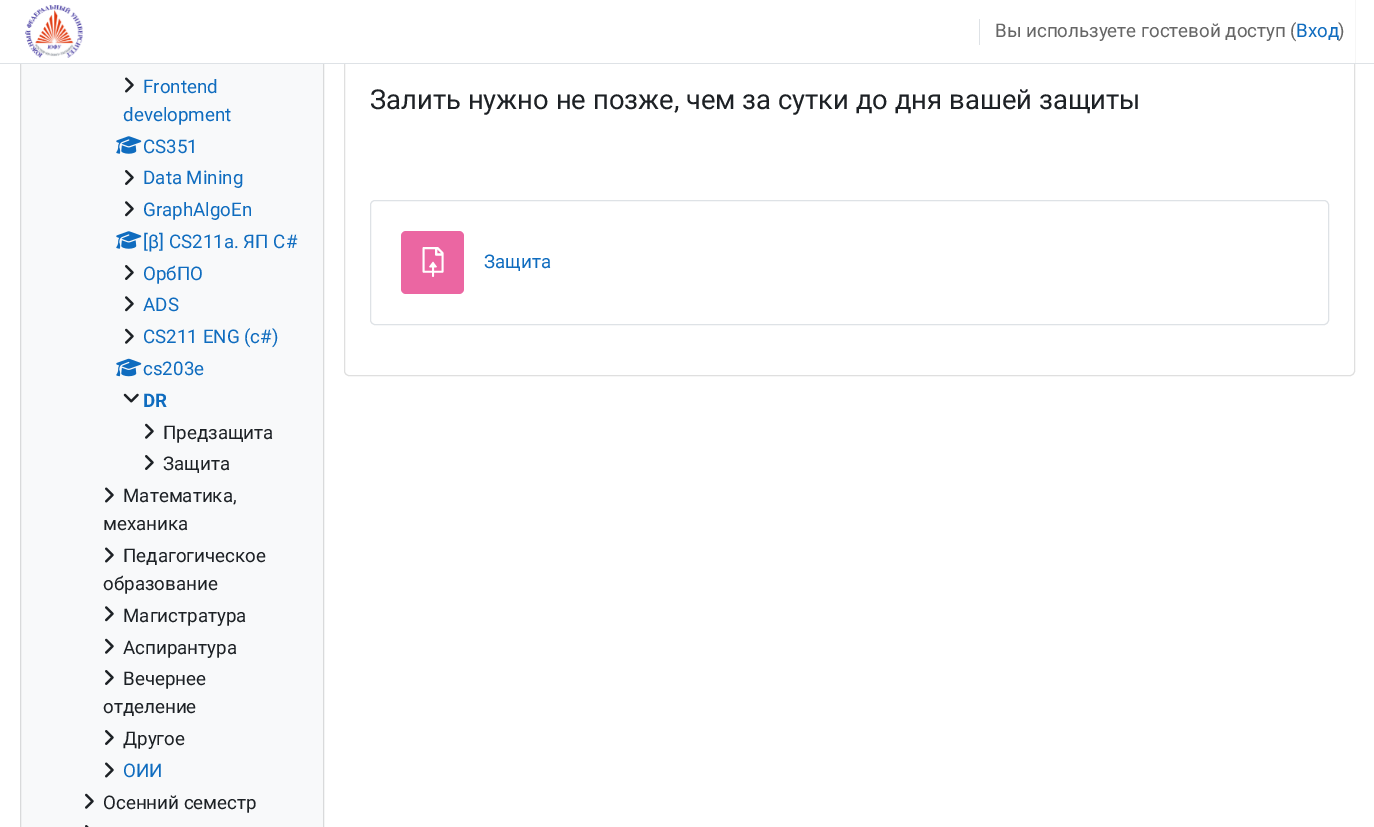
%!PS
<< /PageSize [1374 827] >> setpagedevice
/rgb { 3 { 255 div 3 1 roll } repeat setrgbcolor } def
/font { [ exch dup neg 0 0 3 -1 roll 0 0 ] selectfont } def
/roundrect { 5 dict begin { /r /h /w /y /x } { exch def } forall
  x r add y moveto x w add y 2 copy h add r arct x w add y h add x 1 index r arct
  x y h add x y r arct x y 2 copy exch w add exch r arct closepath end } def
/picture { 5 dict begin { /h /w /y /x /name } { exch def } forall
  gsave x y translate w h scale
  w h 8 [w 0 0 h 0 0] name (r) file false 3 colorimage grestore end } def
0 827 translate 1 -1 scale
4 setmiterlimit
255 255 255 rgb
0 0 1374 827 rectfill
248 249 250 rgb
21 64 302 763 rectfill
217 218 219 rgb
20.5 -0.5 303 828 rectstroke
223 223 223 rgb
344.5 -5.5 1010 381 4.5 roundrect stroke
255 255 255 rgb
20 0 1335 63 rectfill
222 226 230 rgb
0 63 1374 1 rectfill
(img/1.rgb) 25 5 58 53 picture
979 19 1 26 rectfill
(img/2.rgb) 125 77 9 16 picture
(img/3.rgb) 116 136 26 18 picture
(img/4.rgb) 125 170 9 15 picture
(img/5.rgb) 125 201 9 16 picture
(img/3.rgb) 116 231 26 18 picture
(img/4.rgb) 125 265 9 15 picture
(img/5.rgb) 125 296 9 16 picture
(img/6.rgb) 125 328 9 16 picture
(img/7.rgb) 116 358 26 19 picture
(img/8.rgb) 123 393 16 10 picture
(img/6.rgb) 145 423 9 16 picture
(img/4.rgb) 145 455 9 15 picture
(img/2.rgb) 105 487 9 16 picture
(img/2.rgb) 105 547 9 16 picture
(img/5.rgb) 105 606 9 16 picture
(img/6.rgb) 105 638 9 16 picture
(img/4.rgb) 105 670 9 15 picture
(img/4.rgb) 105 730 9 15 picture
(img/2.rgb) 105 762 9 16 picture
(img/6.rgb) 85 793 9 16 picture
(img/9.rgb) 85 825 4 2 picture
370.5 200.5 958 124 4.5 roundrect stroke
235 102 162 rgb
401 231 63 63 5 roundrect fill
(img/10.rgb) 422 247 22 30 picture
/Roboto-Regular 18.75 font
102 102 102 rgb
995 37 moveto (Вы используете гостевой доступ \() show
15 108 191 rgb
1296 37 moveto (Вход) show
102 102 102 rgb
1338 37 moveto (\)) show
15 108 191 rgb
[
  [(Frontend) 143 93]
  [(development) 123 121]
  [(CS351) 143 153]
  [(Data Mining) 143 184]
  [(GraphAlgoEn) 143 216]
  [([β] CS211a. ЯП С#) 143 248]
  [(ОрбПО) 143 280]
  [(ADS) 143 311]
  [(CS211 ENG \(c#\)) 143 343]
  [(cs203e) 143 375]
] { aload pop moveto show } forall
/Roboto-Bold 18.75 font
143 407 moveto (DR) show
/Roboto-Regular 18.75 font
29 33 37 rgb
[
  [(Предзащита) 163 439]
  [(Защита) 163 470]
  [(Математика,) 123 502]
  [(механика) 103 530]
  [(Педагогическое) 123 562]
  [(образование) 103 590]
  [(Магистратура) 123 622]
  [(Аспирантура) 123 654]
  [(Вечернее) 123 685]
  [(отделение) 103 713]
  [(Другое) 123 745]
] { aload pop moveto show } forall
15 108 191 rgb
123 777 moveto (ОИИ) show
29 33 37 rgb
103 809 moveto (Осенний семестр) show
/Roboto-Regular 27.4 font
370 109 moveto (Залить нужно не позже, чем за сутки до дня вашей защиты) show
/Roboto-Regular 18.75 font
15 108 191 rgb
484 268 moveto (Защита) show
showpage
